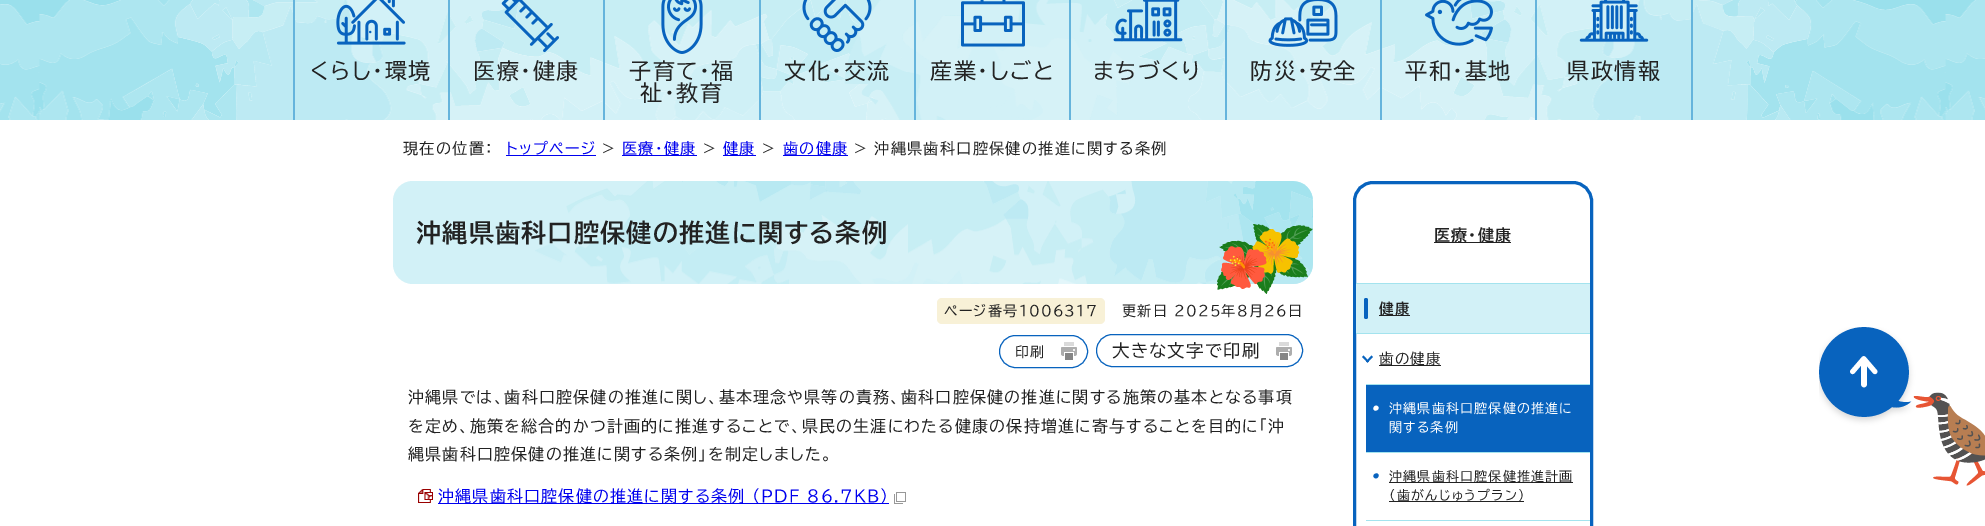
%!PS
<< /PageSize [1985 526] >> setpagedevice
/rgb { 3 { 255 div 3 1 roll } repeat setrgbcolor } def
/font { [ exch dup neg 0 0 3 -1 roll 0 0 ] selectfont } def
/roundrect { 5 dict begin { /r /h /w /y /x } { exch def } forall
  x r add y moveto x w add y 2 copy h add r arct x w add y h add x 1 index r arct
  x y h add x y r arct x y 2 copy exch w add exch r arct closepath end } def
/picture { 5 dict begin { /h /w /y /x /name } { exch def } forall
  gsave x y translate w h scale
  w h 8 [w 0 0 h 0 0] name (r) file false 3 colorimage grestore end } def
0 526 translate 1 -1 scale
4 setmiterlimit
255 255 255 rgb
0 0 1985 526 rectfill
(img/1.rgb) 0 0 1985 120 picture
101 180 220 rgb
293 0 2 120 rectfill
(img/2.rgb) 336 0 70 45 picture
448 0 2 120 rectfill
(img/3.rgb) 501 0 58 53 picture
603 0 2 120 rectfill
(img/4.rgb) 661 0 42 54 picture
759 0 2 120 rectfill
(img/5.rgb) 802 0 70 52 picture
914 0 2 120 rectfill
(img/6.rgb) 961 0 64 47 picture
1069 0 2 120 rectfill
(img/7.rgb) 1113 0 70 42 picture
1225 0 2 120 rectfill
(img/8.rgb) 1268 0 70 47 picture
1380 0 2 120 rectfill
(img/9.rgb) 1425 0 68 46 picture
1691 0 2 120 rectfill
1535 0 2 120 rectfill
(img/10.rgb) 1579 0 70 42 picture
[
  [506 155 90 1 0 0 238]
  [622 155 75 1 0 0 238]
  [723 155 33 1 0 0 238]
  [783 155 65 1 0 0 238]
] { aload pop rgb rectfill } forall
210 241 247 rgb
393 181 920 103 20 roundrect fill
(img/11.rgb) 535 181 778 103 picture
(img/12.rgb) 1217 224 96 70 picture
248 241 215 rgb
937 298 168 26 5 roundrect fill
8 99 190 rgb
999.5 335.5 88 32 16 roundrect stroke
(img/13.rgb) 1061 342 16 18 picture
1096.5 334.5 206 32 16 roundrect stroke
(img/13.rgb) 1276 342 16 18 picture
(img/14.rgb) 418 489 15 14 picture
0 0 238 rgb
438 503 451 1 rectfill
(img/15.rgb) 894 492 12 12 picture
8 99 190 rgb
3 setlinewidth
1354.5 182.5 237 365 18.5 roundrect stroke
[
  [1434 242 77 1 34 34 34]
  [1356 284 234 49 210 241 247]
  [1356 283 234 1 163 227 238]
] { aload pop rgb rectfill } forall
8 99 190 rgb
1364 298 4 21 2 roundrect fill
34 34 34 rgb
1379 315 31 1 rectfill
163 227 238 rgb
1356 333 234 1 rectfill
8 99 190 rgb
1373 357 moveto 1367.5 362.5 lineto 1366 361.5 lineto 1371.5 355.5 lineto closepath fill
1369 361.5 moveto 1367.5 362.5 lineto 1362 357 lineto 1363.5 355.5 lineto closepath fill
[
  [1379 365 62 1 34 34 34]
  [1366 385 224 67 8 99 190]
  [1366 384 224 1 163 227 238]
] { aload pop rgb rectfill } forall
255 255 255 rgb
1378 406.5 moveto 1380 408.5 1376.5 412 1374 410 curveto 1372 407.5 1375.5 404 1378 406.5 curveto closepath fill
163 227 238 rgb
1366 452 224 1 rectfill
8 99 190 rgb
1378 474 moveto 1380 476.5 1376.5 480 1374 477.5 curveto 1372 475.5 1375.5 472 1378 474 curveto closepath fill
[
  [1389 482 184 1 34 34 34]
  [1389 501 135 1 34 34 34]
  [1366 520 224 1 163 227 238]
] { aload pop rgb rectfill } forall
(img/16.rgb) 1819 327 166 159 picture
/BIZUDPGothic-Regular 22 font
34 34 34 rgb
310 79 moveto 1.5 0 (くらし・環境) ashow
473 79 moveto 1.5 0 (医療・健康) ashow
629 79 moveto 1.5 0 (子育て・福) ashow
640 101 moveto 1.5 0 (祉・教育) ashow
784 79 moveto 1.5 0 (文化・交流) ashow
930 79 moveto 1.5 0 (産業・しごと) ashow
1093 79 moveto 1.5 0 (まちづくり) ashow
1250 79 moveto 1.5 0 (防災・安全) ashow
1405 79 moveto 1.5 0 (平和・基地) ashow
1567 79 moveto 1.5 0 (県政情報) ashow
/BIZUDPGothic-Regular 15.2 font
403 154 moveto 1.2 0 (現在の位置：) ashow
0 0 238 rgb
506 154 moveto 1.2 0 (トップページ) ashow
34 34 34 rgb
602 154 moveto 1.2 0 (>) ashow
0 0 238 rgb
622 154 moveto 1.2 0 (医療・健康) ashow
34 34 34 rgb
703 154 moveto 1.2 0 (>) ashow
0 0 238 rgb
723 154 moveto 1.2 0 (健康) ashow
34 34 34 rgb
762 154 moveto 1.2 0 (>) ashow
0 0 238 rgb
783 154 moveto 1.2 0 (歯の健康) ashow
34 34 34 rgb
854 154 moveto 1.2 0 (> 沖縄県歯科口腔保健の推進に関する条例) ashow
/BIZUDPGothic-Bold 25.1 font
416 242 moveto 1.2 0 (沖縄県歯科口腔保健の推進に関する条例) ashow
/BIZUDPGothic-Regular 14.1 font
944 316 moveto 1.2 0 (ページ番号1006317) ashow
1122 316 moveto 1.2 0 (更新日 2025年8月26日) ashow
/BIZUDPGothic-Regular 14 font
1015 357 moveto 1.2 0 (印刷) ashow
/BIZUDPGothic-Regular 17.5 font
1112 357 moveto 1.2 0 (大きな文字で印刷) ashow
/BIZUDPGothic-Regular 16 font
408 403 moveto 1.2 0 (沖縄県では、歯科口腔保健の推進に関し、基本理念や県等の責務、歯科口腔保健の推進に関する施策の基本となる事項) ashow
408 432 moveto 1.2 0 (を定め、施策を総合的かつ計画的に推進することで、県民の生涯にわたる健康の保持増進に寄与することを目的に「沖) ashow
408 460 moveto 1.2 0 (縄県歯科口腔保健の推進に関する条例」を制定しました。) ashow
0 0 238 rgb
438 502 moveto 1.2 0 (沖縄県歯科口腔保健の推進に関する条例 （PDF 86.7KB）) ashow
/BIZUDPGothic-Bold 16 font
34 34 34 rgb
1434 241 moveto 1.2 0 (医療・健康) ashow
/BIZUDPGothic-Bold 14.5 font
1379 314 moveto 1.2 0 (健康) ashow
/BIZUDPGothic-Regular 14.5 font
1379 364 moveto 1.2 0 (歯の健康) ashow
/BIZUDPGothic-Regular 13 font
255 255 255 rgb
1389 413 moveto 1.2 0 (沖縄県歯科口腔保健の推進に) ashow
1389 432 moveto 1.2 0 (関する条例) ashow
34 34 34 rgb
1389 481 moveto 1.2 0 (沖縄県歯科口腔保健推進計画) ashow
1389 500 moveto 1.2 0 (（歯がんじゅうプラン）) ashow
showpage
